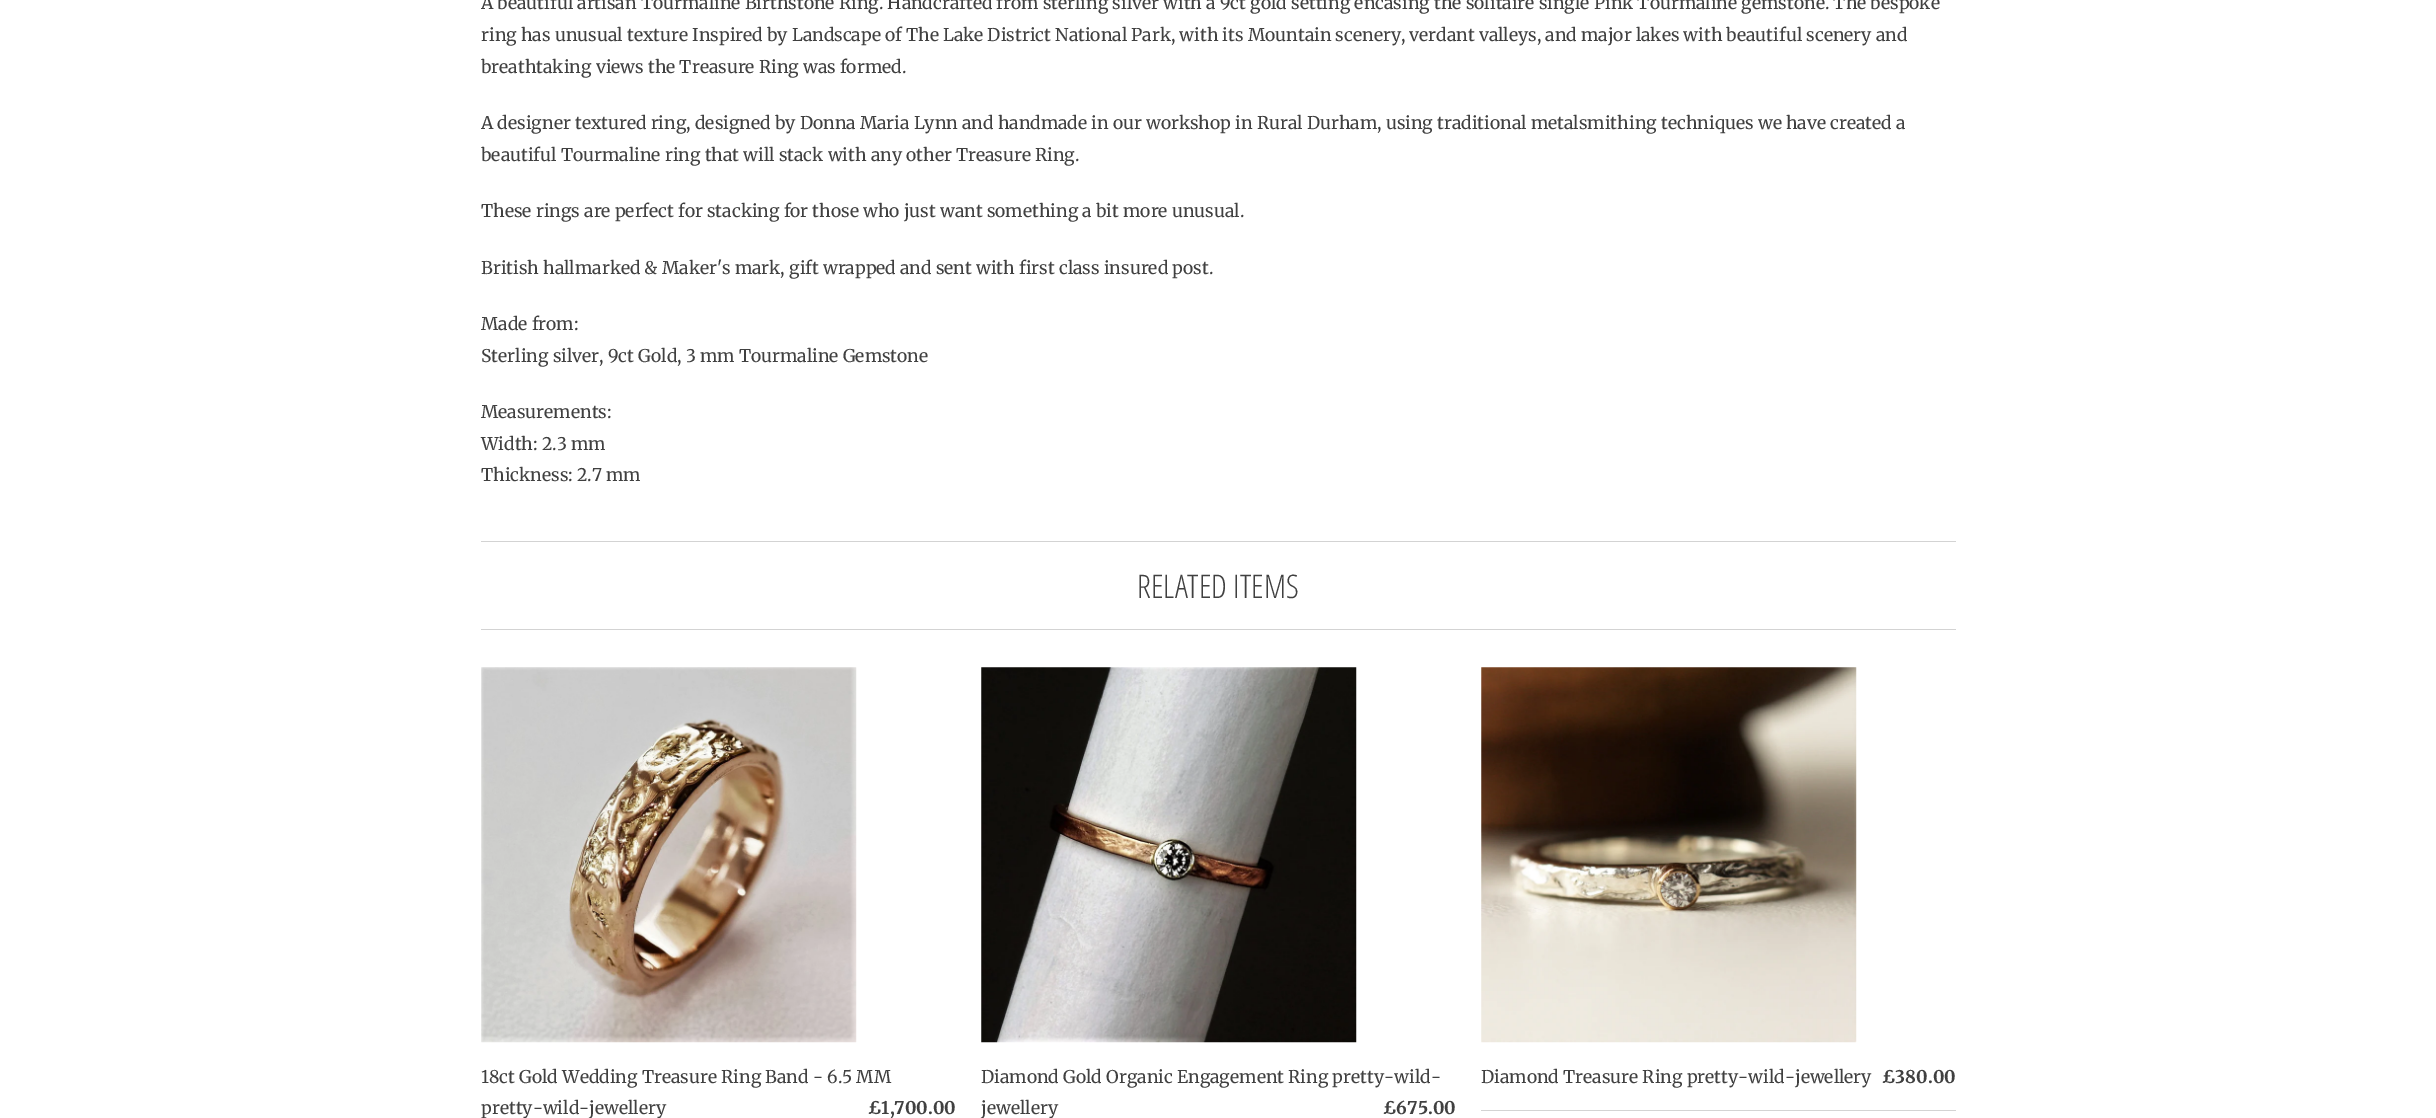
%!PS
<< /PageSize [2436 1118] >> setpagedevice
/rgb { 3 { 255 div 3 1 roll } repeat setrgbcolor } def
/font { [ exch dup neg 0 0 3 -1 roll 0 0 ] selectfont } def
/picture { 5 dict begin { /h /w /y /x /name } { exch def } forall
  gsave x y translate w h scale
  w h 8 [w 0 0 h 0 0] name (r) file false 3 colorimage grestore end } def
0 1118 translate 1 -1 scale
4 setmiterlimit
255 255 255 rgb
0 0 2436 1118 rectfill
211 211 211 rgb
481 541 1475 1 rectfill
481 629 1475 1 rectfill
(img/1.rgb) 481 667 376 376 picture
(img/2.rgb) 981 667 376 376 picture
1481 1110 475 1 rectfill
(img/3.rgb) 1481 667 376 376 picture
/Merriweather-Regular 17.5 font
64 64 64 rgb
[
  [(A beautiful artisan Tourmaline Birthstone Ring. Handcrafted from sterling silver with a 9ct gold setting encasing the solitaire single Pink Tourmaline gemstone. The bespoke) 481 9]
  [(ring has unusual texture Inspired by Landscape of The Lake District National Park, with its Mountain scenery, verdant valleys, and major lakes with beautiful scenery and) 481 41]
  [(breathtaking views the Treasure Ring was formed.) 481 73]
  [(A designer textured ring, designed by Donna Maria Lynn and handmade in our workshop in Rural Durham, using traditional metalsmithing techniques we have created a) 481 129]
  [(beautiful Tourmaline ring that will stack with any other Treasure Ring.) 481 161]
  [(These rings are perfect for stacking for those who just want something a bit more unusual.) 481 217]
  [(British hallmarked & Maker's mark, gift wrapped and sent with first class insured post.) 481 274]
  [(Made from:) 481 330]
  [(Sterling silver, 9ct Gold, 3 mm Tourmaline Gemstone) 481 362]
  [(Measurements:) 481 418]
  [(Width: 2.3 mm) 481 450]
  [(Thickness: 2.7 mm) 481 481]
] { aload pop moveto show } forall
/OpenSansCondensed-Light 32.5 font
1137 598 moveto (RELATED ITEMS) show
/Merriweather-Regular 17.5 font
481 1083 moveto (18ct Gold Wedding Treasure Ring Band - 6.5 MM) show
481 1114 moveto (pretty-wild-jewellery) show
/Merriweather-Bold 17.5 font
868 1114 moveto (£1,700.00) show
/Merriweather-Regular 17.5 font
981 1083 moveto (Diamond Gold Organic Engagement Ring pretty-wild-) show
981 1114 moveto (jewellery) show
/Merriweather-Bold 17.5 font
1383 1114 moveto (£675.00) show
/Merriweather-Regular 17.5 font
1481 1083 moveto (Diamond Treasure Ring pretty-wild-jewellery) show
/Merriweather-Bold 17.5 font
1882 1083 moveto (£380.00) show
showpage
